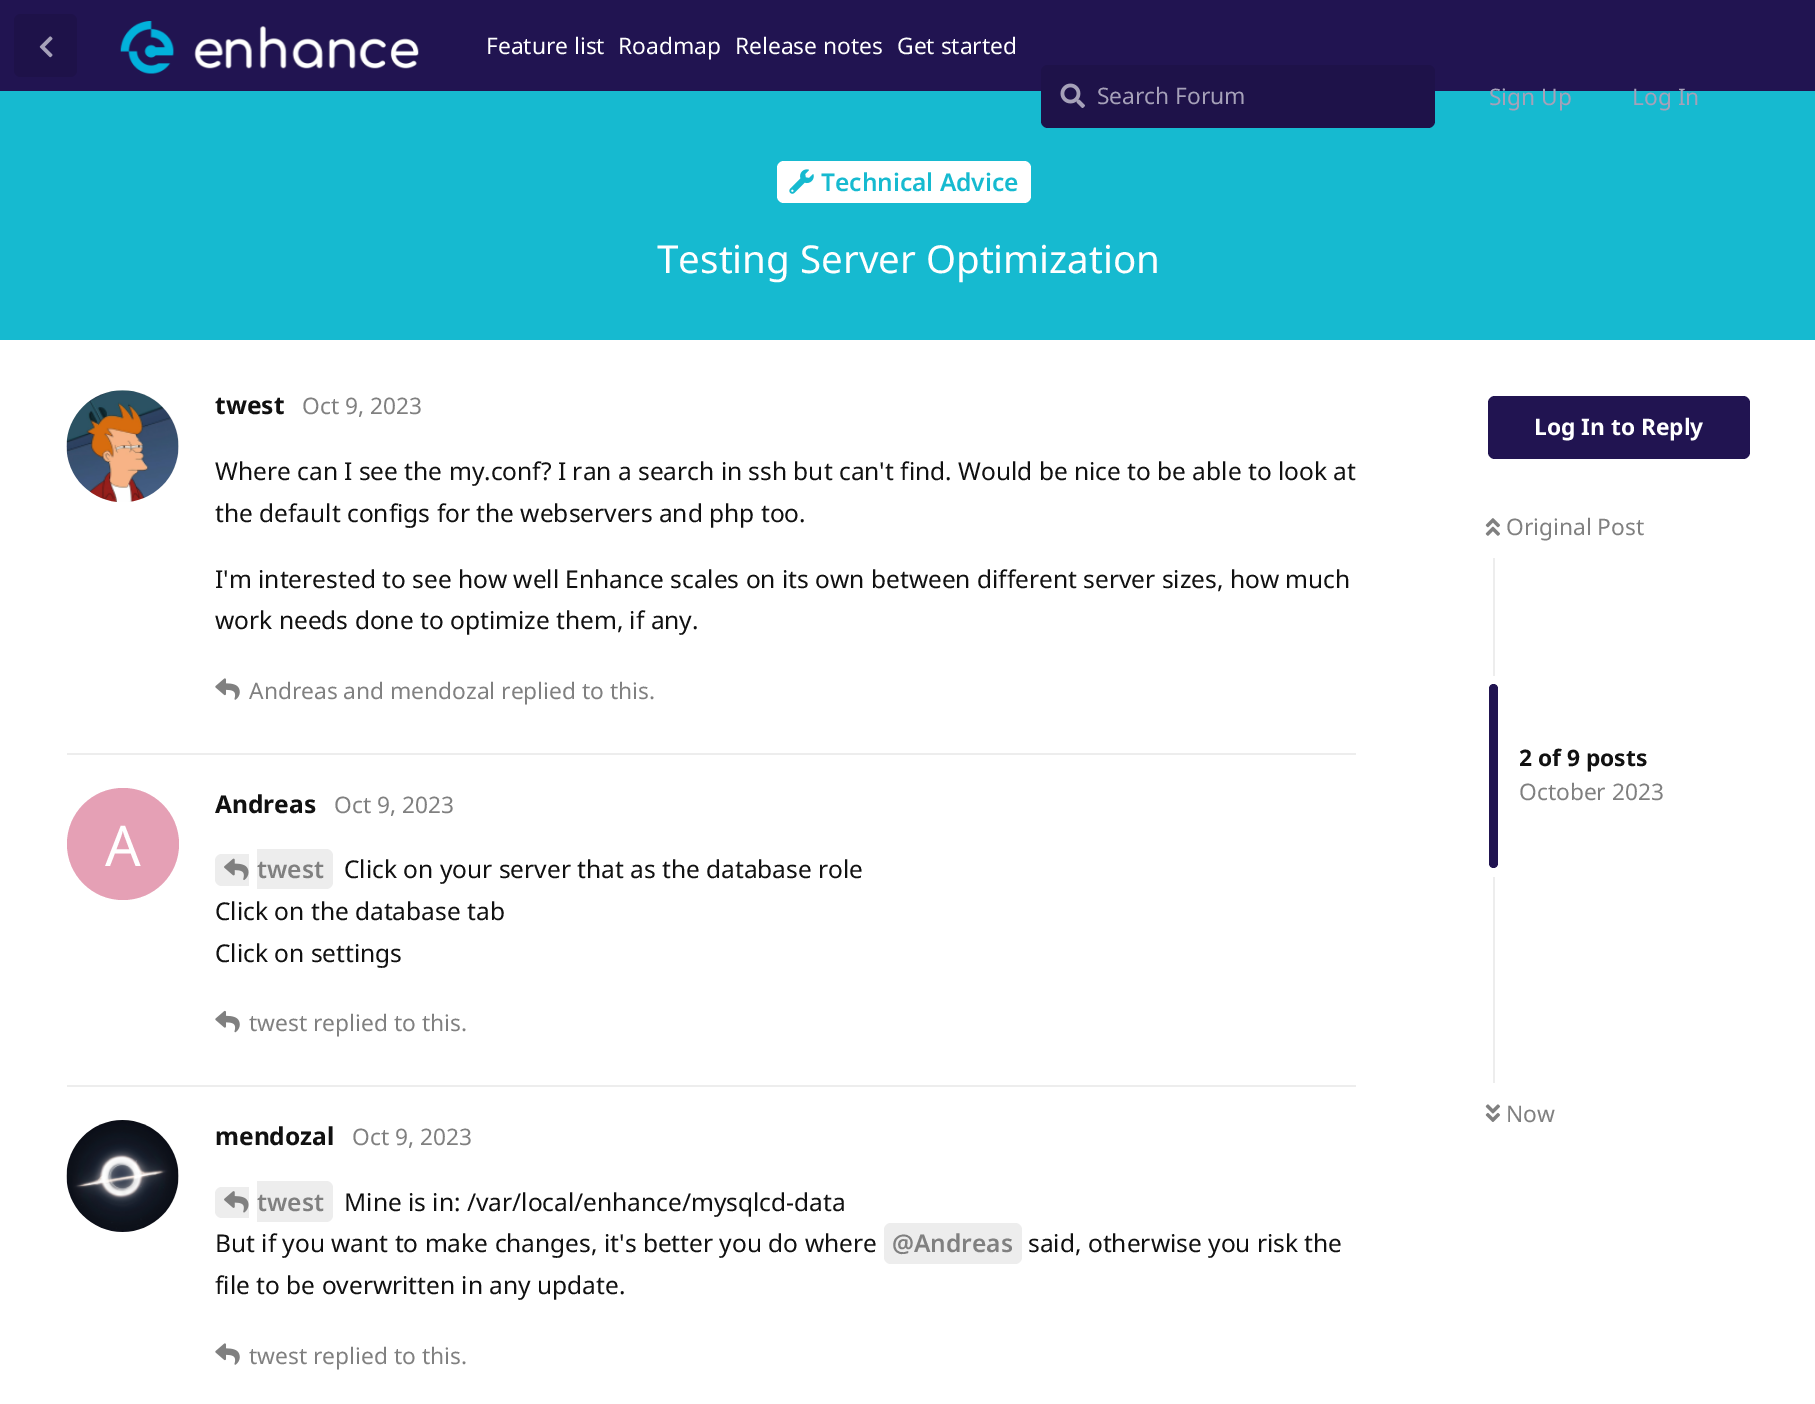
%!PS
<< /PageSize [1815 1404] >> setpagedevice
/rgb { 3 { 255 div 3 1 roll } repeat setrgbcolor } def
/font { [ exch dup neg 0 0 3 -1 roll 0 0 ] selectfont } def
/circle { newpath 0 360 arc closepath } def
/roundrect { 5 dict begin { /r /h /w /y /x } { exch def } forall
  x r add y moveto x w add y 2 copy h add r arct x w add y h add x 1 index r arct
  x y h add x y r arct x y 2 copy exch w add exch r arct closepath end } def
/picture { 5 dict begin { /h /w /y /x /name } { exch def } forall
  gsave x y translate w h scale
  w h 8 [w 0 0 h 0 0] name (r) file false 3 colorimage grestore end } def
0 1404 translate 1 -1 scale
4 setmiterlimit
255 255 255 rgb
0 0 1815 1404 rectfill
33 20 81 rgb
0 0 1815 91 rectfill
30 18 73 rgb
14 14 63 63 7 roundrect fill
(img/1.rgb) 39 36 14 22 picture
(img/2.rgb) 120 21 299 53 picture
22 186 208 rgb
0 91 1815 249 rectfill
30 18 73 rgb
1041 65 394 63 7 roundrect fill
(img/3.rgb) 1060 83 25 25 picture
255 255 255 rgb
777 161 254 42 7 roundrect fill
(img/4.rgb) 789 169 25 25 picture
237 237 237 rgb
67 753 1289 2 rectfill
123 446 56 circle fill
(img/5.rgb) 66 390 113 112 picture
(img/6.rgb) 215 678 25 22 picture
67 1085 1289 2 rectfill
229 160 181 rgb
123 844 56 circle fill
237 237 237 rgb
222 854 moveto 249 854 lineto 249 886 lineto 222 886 lineto 218 886 215 883 215 879 curveto 215 861 lineto 215 857 218 854 222 854 curveto closepath fill
257 849 moveto 326 849 lineto 330 849 333 852 333 856 curveto 333 882 lineto 333 886 330 889 326 889 curveto 257 889 lineto closepath fill
(img/7.rgb) 224 858 25 22 picture
(img/8.rgb) 215 1010 25 23 picture
123 1176 56 circle fill
(img/9.rgb) 66 1120 113 112 picture
222 1187 moveto 249 1187 lineto 249 1218 lineto 222 1218 lineto 218 1218 215 1215 215 1211 curveto 215 1194 lineto 215 1190 218 1187 222 1187 curveto closepath fill
257 1181 moveto 326 1181 lineto 330 1181 333 1184 333 1188 curveto 333 1215 lineto 333 1219 330 1222 326 1222 curveto 257 1222 lineto closepath fill
(img/10.rgb) 224 1191 25 22 picture
884 1223 138 41 7 roundrect fill
(img/6.rgb) 215 1343 25 22 picture
33 20 81 rgb
1488 396 262 63 7 roundrect fill
(img/11.rgb) 1485 518 15 18 picture
237 237 237 rgb
1493 558 2 118 rectfill
33 20 81 rgb
1489 684 9 184 4.5 roundrect fill
237 237 237 rgb
1493 877 2 206 rectfill
(img/12.rgb) 1485 1104 15 18 picture
/NotoSans-Regular 22.75 font
255 255 255 rgb
[
  [(Feature list) 486 54]
  [(Roadmap) 618 54]
  [(Release notes) 735 54]
  [(Get started) 897 54]
] { aload pop moveto show } forall
166 161 185 rgb
[
  [(Search Forum) 1097 104]
  [(Sign Up) 1489 105]
  [(Log In) 1632 105]
] { aload pop moveto show } forall
/NotoSans-SemiBold 24.5 font
22 186 208 rgb
821 191 moveto (Technical Advice) show
/NotoSans-Regular 38.5 font
255 255 255 rgb
657 273 moveto (Testing Server Optimization) show
/NotoSans-Bold 24.5 font
17 17 17 rgb
215 414 moveto (twest) show
/NotoSans-Regular 22.75 font
128 128 128 rgb
302 414 moveto (Oct 9, 2023) show
/NotoSans-Regular 24.5 font
17 17 17 rgb
[
  [(Where can I see the my.conf? I ran a search in ssh but can't find. Would be nice to be able to look at) 215 480]
  [(the default configs for the webservers and php too.) 215 522]
  [(I'm interested to see how well Enhance scales on its own between different server sizes, how much) 215 588]
  [(work needs done to optimize them, if any.) 215 629]
] { aload pop moveto show } forall
/NotoSans-Regular 22.75 font
128 128 128 rgb
249 699 moveto (Andreas and mendozal replied to this.) show
/NotoSans-Bold 24.5 font
17 17 17 rgb
215 813 moveto (Andreas) show
/NotoSans-Regular 56 font
255 255 255 rgb
105 866 moveto (A) show
/NotoSans-Regular 22.75 font
128 128 128 rgb
334 813 moveto (Oct 9, 2023) show
/NotoSans-SemiBold 24.5 font
257 878 moveto (twest) show
/NotoSans-Regular 24.5 font
17 17 17 rgb
[
  [(Click on your server that as the database role) 344 878]
  [(Click on the database tab) 215 920]
  [(Click on settings) 215 962]
] { aload pop moveto show } forall
/NotoSans-Regular 22.75 font
128 128 128 rgb
249 1031 moveto (twest replied to this.) show
/NotoSans-Bold 24.5 font
17 17 17 rgb
215 1145 moveto (mendozal) show
/NotoSans-Regular 22.75 font
128 128 128 rgb
352 1145 moveto (Oct 9, 2023) show
/NotoSans-SemiBold 24.5 font
257 1211 moveto (twest) show
/NotoSans-Regular 24.5 font
17 17 17 rgb
344 1211 moveto (Mine is in: /var/local/enhance/mysqlcd-data) show
215 1252 moveto (But if you want to make changes, it's better you do where) show
/NotoSans-SemiBold 24.5 font
128 128 128 rgb
892 1252 moveto (@Andreas) show
/NotoSans-Regular 24.5 font
17 17 17 rgb
1028 1252 moveto (said, otherwise you risk the) show
215 1294 moveto (file to be overwritten in any update.) show
/NotoSans-Regular 22.75 font
128 128 128 rgb
249 1364 moveto (twest replied to this.) show
/NotoSans-Bold 22.75 font
255 255 255 rgb
1534 435 moveto (Log In to Reply) show
/NotoSans-Regular 22.75 font
128 128 128 rgb
1506 535 moveto (Original Post) show
/NotoSans-Bold 22.75 font
17 17 17 rgb
1519 766 moveto (2 of 9 posts) show
/NotoSans-Regular 22.75 font
128 128 128 rgb
1519 800 moveto (October 2023) show
1506 1122 moveto (Now) show
showpage
